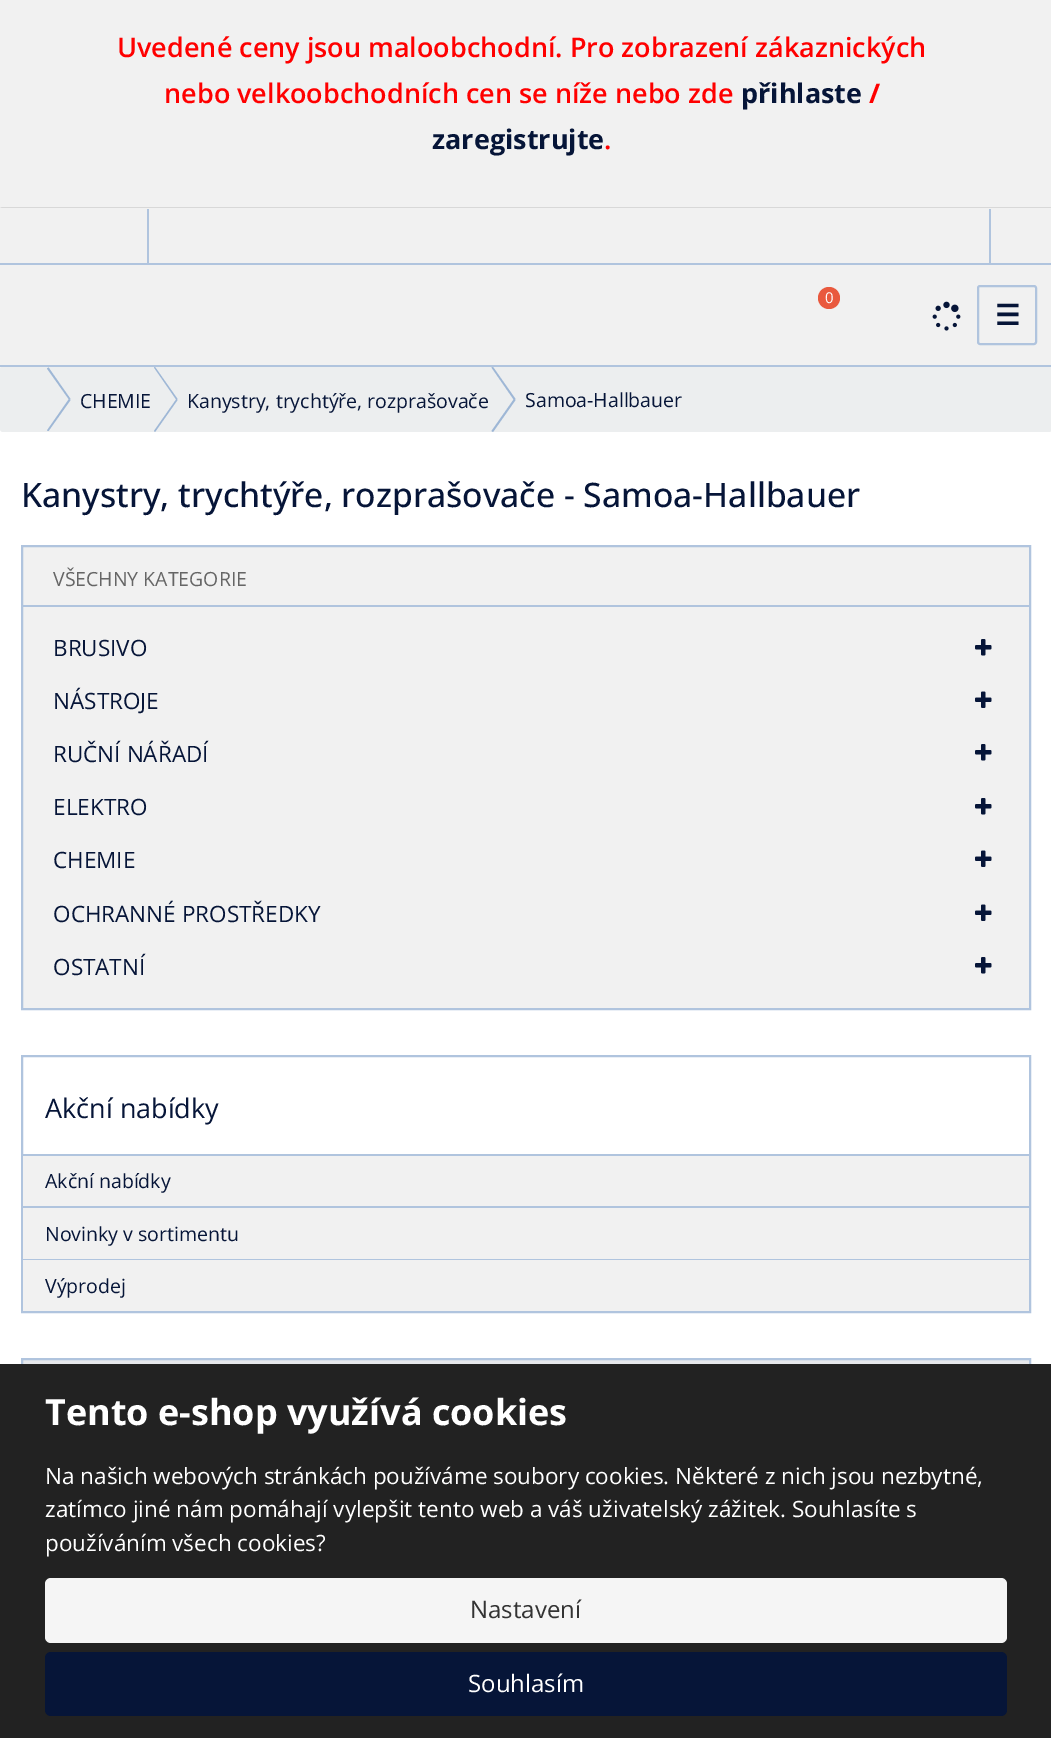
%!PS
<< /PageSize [1051 1738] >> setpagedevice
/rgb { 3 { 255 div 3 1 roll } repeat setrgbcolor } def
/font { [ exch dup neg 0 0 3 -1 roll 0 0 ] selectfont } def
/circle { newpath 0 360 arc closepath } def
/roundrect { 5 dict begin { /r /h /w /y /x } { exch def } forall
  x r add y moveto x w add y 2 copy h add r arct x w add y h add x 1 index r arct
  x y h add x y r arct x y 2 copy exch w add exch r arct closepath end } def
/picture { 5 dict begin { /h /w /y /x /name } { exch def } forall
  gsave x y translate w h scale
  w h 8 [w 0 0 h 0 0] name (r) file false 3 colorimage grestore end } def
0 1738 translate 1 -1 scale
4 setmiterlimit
255 255 255 rgb
0 0 1051 1738 rectfill
241 241 241 rgb
0 0 1051 365 rectfill
216 216 216 rgb
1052 208 moveto 0 208 lineto 2 207 lineto 1050 207 lineto closepath fill
[
  [0 263 1051 2 176 196 222]
  [147 209 2 54 176 196 222]
  [989 209 2 54 176 196 222]
] { aload pop rgb rectfill } forall
236 238 239 rgb
0 366 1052 66 3 roundrect fill
176 196 222 rgb
0 365 1051 2 rectfill
233 89 62 rgb
829 298 11 circle fill
(img/1.rgb) 932 301 29 30 picture
176 196 222 rgb
2 setlinewidth
978 286 58 58 2 roundrect stroke
158 183 214 rgb
47 368.5 moveto 48.5 367.5 lineto 70.5 399 lineto 69 399.5 lineto closepath fill
69 399 moveto 70.5 400 lineto 48.5 431 lineto 47 430.5 lineto closepath fill
154 367.5 moveto 155 367 lineto 177.5 399 lineto 176.5 400 lineto closepath fill
176.5 399 moveto 177.5 400 lineto 155 432 lineto 154 431 lineto closepath fill
491.5 367.5 moveto 493 367 lineto 515.5 399 lineto 514 400 lineto closepath fill
514 399 moveto 515.5 400 lineto 493 432 lineto 491.5 431 lineto closepath fill
241 241 241 rgb
22 546 moveto 1030 546 lineto 1030 1009 lineto 22 1009 lineto closepath gsave fill grestore
176 196 222 rgb
stroke
23 605 1006 2 rectfill
(img/2.rgb) 975 639 17 17 picture
(img/3.rgb) 975 691 17 17 picture
(img/2.rgb) 975 744 17 17 picture
(img/2.rgb) 975 798 17 17 picture
(img/3.rgb) 975 850 17 17 picture
(img/3.rgb) 975 904 17 17 picture
(img/2.rgb) 975 957 17 17 picture
22 1056 1008 256 rectstroke
[
  [23 1156 1006 50 241 241 241]
  [23 1154 1006 2 176 196 222]
  [23 1206 1006 2 176 196 222]
  [23 1208 1006 51 241 241 241]
  [23 1259 1006 1 176 196 222]
  [23 1260 1006 51 241 241 241]
  [23 1360 1006 4 230 232 235]
] { aload pop rgb rectfill } forall
176 196 222 rgb
22 1359 1008 88 rectstroke
34 34 34 rgb
0 1364 1051 374 rectfill
245 245 245 rgb
45 1578 962 65 6 roundrect fill
6 21 56 rgb
45 1652 962 64 6 roundrect fill
/OpenSans-SemiBold 27 font
255 0 0 rgb
117 57 moveto (Uvedené ceny jsou maloobchodní. Pro zobrazení zákaznických) show
164 103 moveto (nebo velkoobchodních cen se níže nebo zde) show
/OpenSans-Bold 27 font
6 21 56 rgb
741 103 moveto (přihlaste) show
255 0 0 rgb
869 103 moveto (/) show
6 21 56 rgb
432 149 moveto (zaregistrujte) show
/OpenSans-SemiBold 27 font
255 0 0 rgb
604 149 moveto (.) show
/OpenSans-Regular 15 font
255 255 255 rgb
825 303 moveto (0) show
/DejaVuSans-Bold 28 font
6 21 56 rgb
995 325 moveto (☰) show
/OpenSans-Regular 19.5 font
[
  [(CHEMIE) 80 408]
  [(Kanystry, trychtýře, rozprašovače) 187 408]
  [(Samoa-Hallbauer) 525 407]
] { aload pop moveto show } forall
/OpenSans-Medium 33.75 font
21 507 moveto (Kanystry, trychtýře, rozprašovače - Samoa-Hallbauer) show
/OpenSans-Regular 19.5 font
102 102 102 rgb
53 586 moveto (VŠECHNY KATEGORIE) show
/OpenSans-Regular 22.5 font
6 21 56 rgb
[
  [(BRUSIVO) 53 656]
  [(NÁSTROJE) 53 709]
  [(RUČNÍ NÁŘADÍ) 53 762]
  [(ELEKTRO) 53 815]
  [(CHEMIE) 53 868]
  [(OCHRANNÉ PROSTŘEDKY) 53 922]
  [(OSTATNÍ) 53 975]
] { aload pop moveto show } forall
/OpenSans-Regular 27 font
45 1118 moveto (Akční nabídky) show
/OpenSans-Regular 19.5 font
[
  [(Akční nabídky) 45 1188]
  [(Novinky v sortimentu) 45 1241]
  [(Výprodej) 45 1293]
] { aload pop moveto show } forall
/OpenSans-Bold 36 font
255 255 255 rgb
45 1425 moveto (Tento e-shop využívá cookies) show
/OpenSans-Regular 22.5 font
[
  [(Na našich webových stránkách používáme soubory cookies. Některé z nich jsou nezbytné,) 45 1484]
  [(zatímco jiné nám pomáhají vylepšit tento web a váš uživatelský zážitek. Souhlasíte s) 45 1517]
  [(používáním všech cookies?) 45 1551]
] { aload pop moveto show } forall
/OpenSans-Regular 24 font
51 51 51 rgb
470 1618 moveto (Nastavení) show
255 255 255 rgb
468 1692 moveto (Souhlasím) show
showpage
